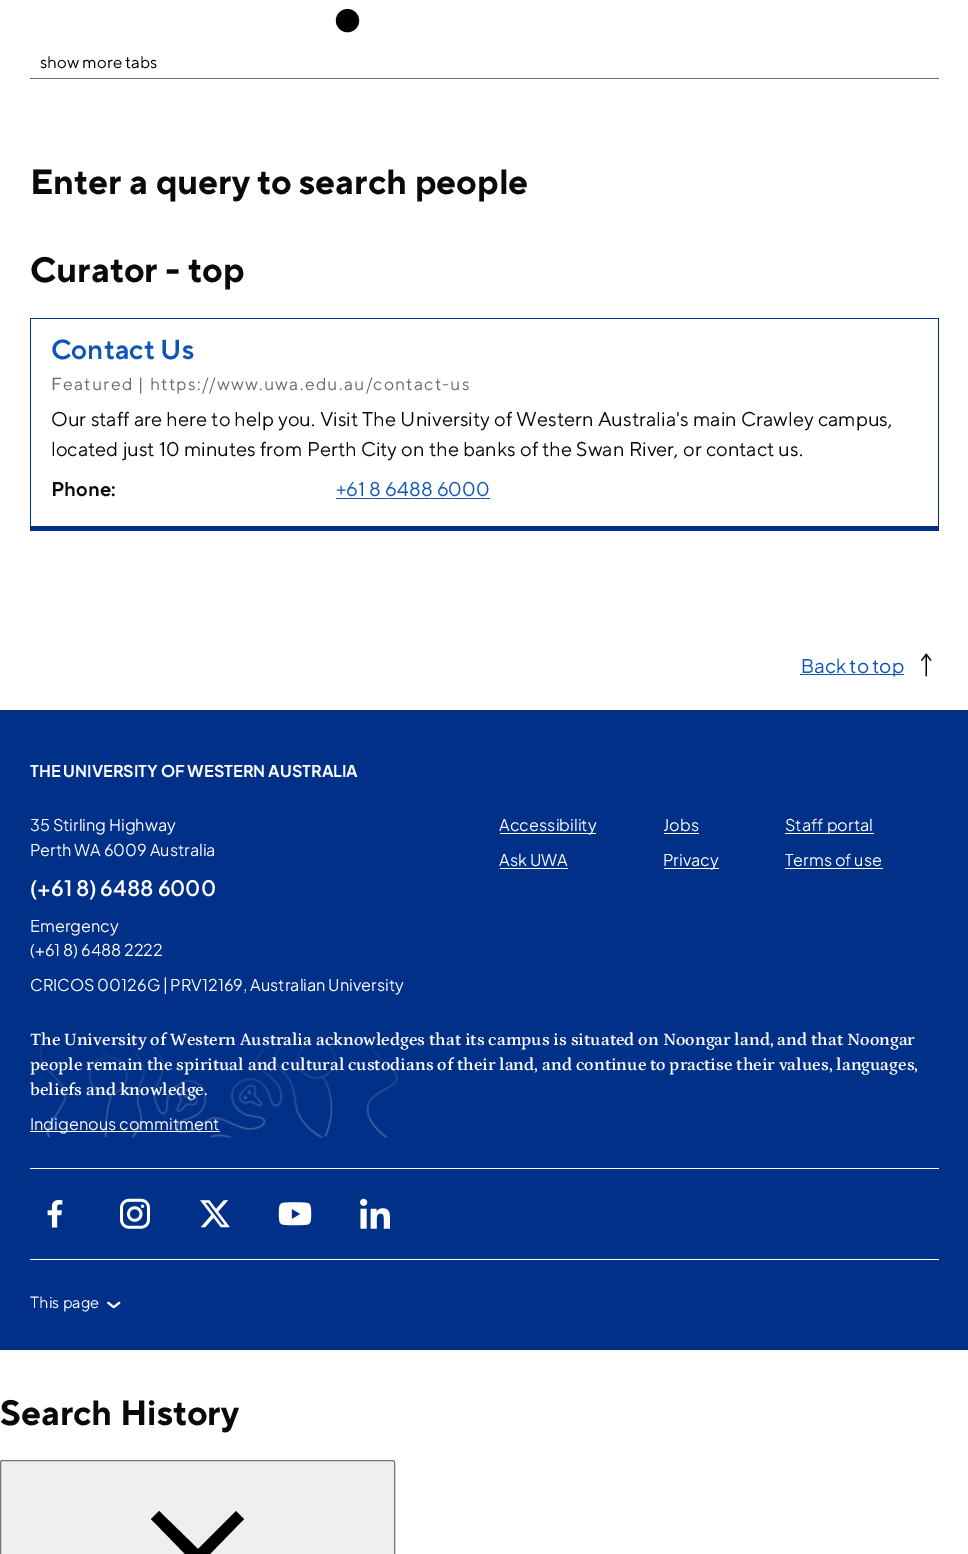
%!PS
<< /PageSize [968 1554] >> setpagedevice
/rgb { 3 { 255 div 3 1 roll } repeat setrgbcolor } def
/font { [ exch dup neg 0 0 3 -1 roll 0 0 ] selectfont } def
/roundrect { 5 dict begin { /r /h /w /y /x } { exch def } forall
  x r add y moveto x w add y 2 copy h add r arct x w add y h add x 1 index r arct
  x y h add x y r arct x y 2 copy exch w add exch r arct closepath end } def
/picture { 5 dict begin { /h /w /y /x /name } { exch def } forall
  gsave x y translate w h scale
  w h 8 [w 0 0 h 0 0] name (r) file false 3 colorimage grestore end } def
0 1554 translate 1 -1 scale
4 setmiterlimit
255 255 255 rgb
0 0 968 1554 rectfill
(img/1.rgb) 335 8 25 25 picture
[
  [30 78 909 1 107 107 107]
  [30 318 909 1 0 48 135]
  [938 318 1 213 0 48 135]
  [30 526 909 5 0 48 135]
  [30 318 1 213 0 48 135]
  [336 498 154 1 14 85 181]
] { aload pop rgb rectfill } forall
(img/2.rgb) 921 653 11 24 picture
[
  [800 674 104 1 14 85 181]
  [0 710 968 640 0 48 135]
  [500 833 96 1 255 255 255]
  [664 833 35 1 255 255 255]
  [785 833 89 1 255 255 255]
  [500 868 68 1 255 255 255]
  [664 868 55 1 255 255 255]
  [785 868 98 1 255 255 255]
] { aload pop rgb rectfill } forall
(img/3.rgb) 40 1036 358 102 picture
[
  [30 1131 190 1 255 255 255]
  [30 1168 909 1 255 255 255]
  [30 1259 909 1 255 255 255]
] { aload pop rgb rectfill } forall
(img/4.rgb) 47 1200 16 28 picture
(img/5.rgb) 120 1198 30 31 picture
(img/6.rgb) 200 1200 30 28 picture
(img/7.rgb) 278 1202 34 24 picture
(img/8.rgb) 360 1198 30 31 picture
(img/9.rgb) 107 1301 14 8 picture
239 239 239 rgb
0.5 1460.5 394 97 2 roundrect gsave fill grestore
118 118 118 rgb
stroke
0 0 0 rgb
244 1519 moveto 236 1511 lineto 198 1549 lineto 159 1511 lineto 151 1519 lineto 189 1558 lineto 151 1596 lineto 159 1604 lineto 198 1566 lineto 236 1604 lineto 244 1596 lineto 206 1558 lineto closepath fill
/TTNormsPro-Regular 16.75 font
40 68 moveto (show more tabs) show
/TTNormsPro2-Regular 35.2 font
10 10 10 rgb
30 194 moveto (Enter a query to search people) show
30 282 moveto (Curator - top) show
/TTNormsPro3-Regular 27.5 font
14 85 181 rgb
51 359 moveto (Contact Us) show
/TTNormsPro-Regular 17.5 font
107 107 107 rgb
51 390 moveto 1.25 0 (Featured | https://www.uwa.edu.au/contact-us) ashow
/TTNormsPro-Regular 20 font
10 10 10 rgb
51 426 moveto (Our staff are here to help you. Visit The University of Western Australia's main Crawley campus,) show
51 456 moveto (located just 10 minutes from Perth City on the banks of the Swan River, or contact us.) show
/TTNormsPro3-Regular 20 font
51 496 moveto (Phone:) show
/TTNormsPro-Regular 20 font
14 85 181 rgb
336 496 moveto (+61 8 6488 6000) show
/PlusJakartaSans-Regular 18.75 font
801 673 moveto (Back to top) show
/PlusJakartaSans-Bold 16.25 font
255 255 255 rgb
30 777 moveto (THE UNIVERSITY OF WESTERN AUSTRALIA) show
/PlusJakartaSans-Regular 16.25 font
30 831 moveto (35 Stirling Highway) show
30 856 moveto (Perth WA 6009 Australia) show
/PlusJakartaSans-SemiBold 21.25 font
30 896 moveto (\(+61 8\) 6488 6000) show
/PlusJakartaSans-Regular 16.25 font
[
  [(Emergency) 30 932]
  [(\(+61 8\) 6488 2222) 30 956]
  [(CRICOS 00126G | PRV12169, Australian University) 30 991]
  [(Accessibility) 499 831]
  [(Jobs) 663 831]
  [(Staff portal) 785 831]
  [(Ask UWA) 499 866]
  [(Privacy) 663 866]
  [(Terms of use) 785 866]
] { aload pop moveto show } forall
/Petrona-SemiBoldItalic 17.5 font
[
  [(The University of Western Australia acknowledges that its campus is situated on Noongar land, and that Noongar) 30 1045]
  [(people remain the spiritual and cultural custodians of their land, and continue to practise their values, languages,) 30 1070]
  [(beliefs and knowledge.) 30 1095]
] { aload pop moveto show } forall
/PlusJakartaSans-Regular 16.25 font
30 1130 moveto (Indigenous commitment) show
/TTNormsPro-Regular 16.25 font
30 1308 moveto (This page) show
/TTNormsPro2-Regular 35.2 font
10 10 10 rgb
0 1425 moveto (Search History) show
showpage
